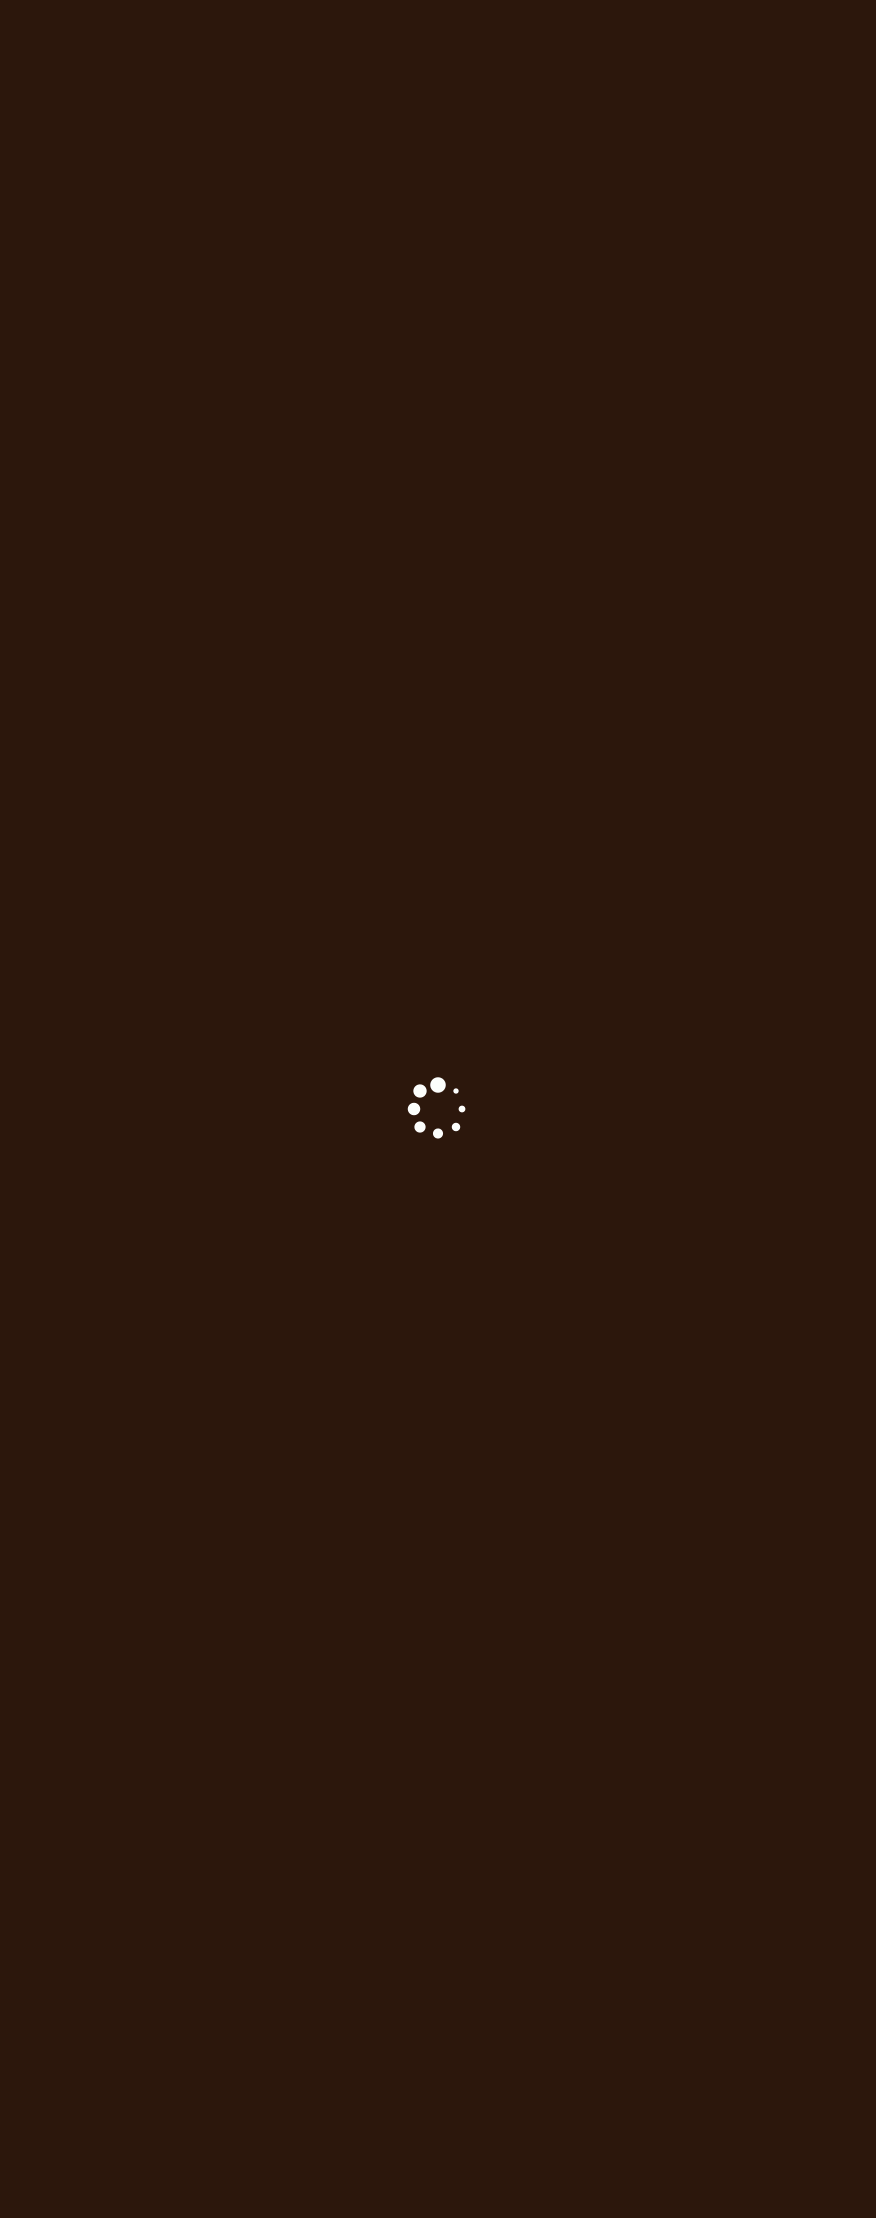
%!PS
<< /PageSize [876 2218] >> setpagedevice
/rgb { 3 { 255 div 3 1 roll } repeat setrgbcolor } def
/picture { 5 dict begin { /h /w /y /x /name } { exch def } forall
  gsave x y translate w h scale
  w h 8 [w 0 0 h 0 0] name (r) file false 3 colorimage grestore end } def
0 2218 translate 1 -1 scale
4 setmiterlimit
44 23 12 rgb
0 0 876 2218 rectfill
(img/1.rgb) 407 1077 59 62 picture
showpage
